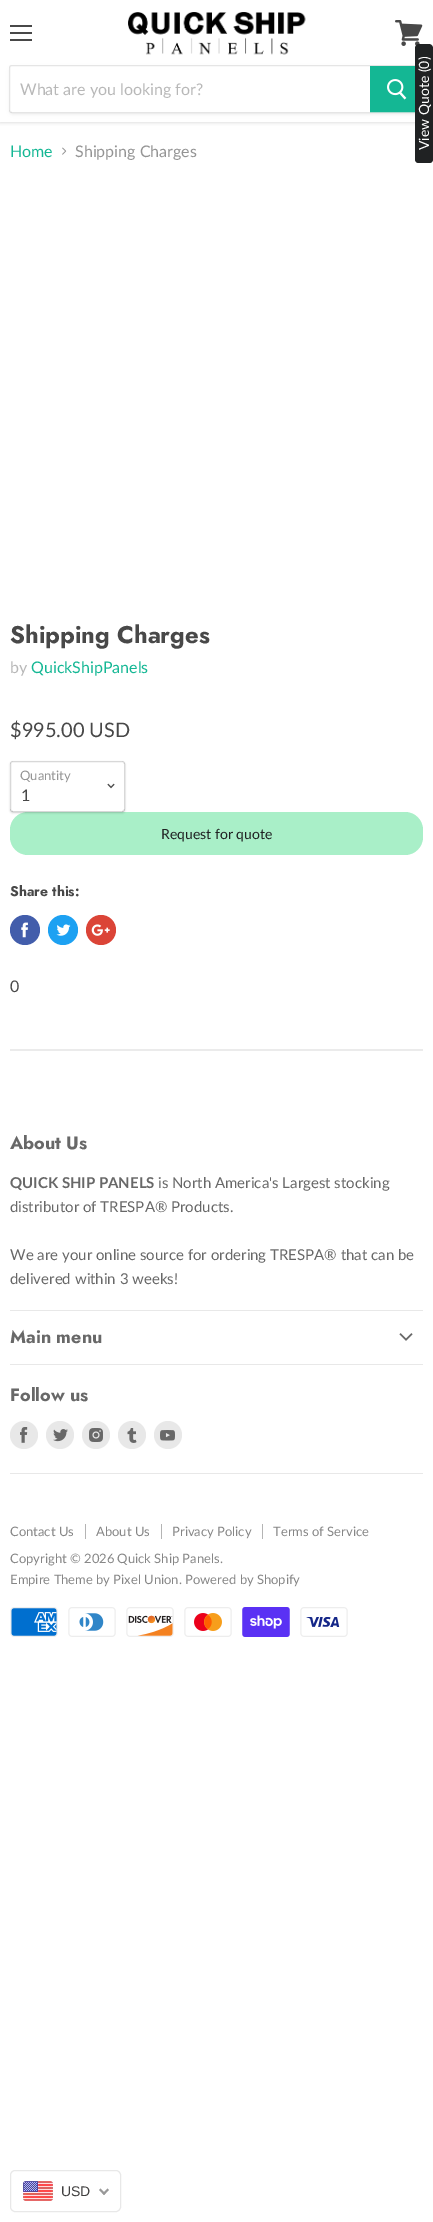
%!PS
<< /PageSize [433 2222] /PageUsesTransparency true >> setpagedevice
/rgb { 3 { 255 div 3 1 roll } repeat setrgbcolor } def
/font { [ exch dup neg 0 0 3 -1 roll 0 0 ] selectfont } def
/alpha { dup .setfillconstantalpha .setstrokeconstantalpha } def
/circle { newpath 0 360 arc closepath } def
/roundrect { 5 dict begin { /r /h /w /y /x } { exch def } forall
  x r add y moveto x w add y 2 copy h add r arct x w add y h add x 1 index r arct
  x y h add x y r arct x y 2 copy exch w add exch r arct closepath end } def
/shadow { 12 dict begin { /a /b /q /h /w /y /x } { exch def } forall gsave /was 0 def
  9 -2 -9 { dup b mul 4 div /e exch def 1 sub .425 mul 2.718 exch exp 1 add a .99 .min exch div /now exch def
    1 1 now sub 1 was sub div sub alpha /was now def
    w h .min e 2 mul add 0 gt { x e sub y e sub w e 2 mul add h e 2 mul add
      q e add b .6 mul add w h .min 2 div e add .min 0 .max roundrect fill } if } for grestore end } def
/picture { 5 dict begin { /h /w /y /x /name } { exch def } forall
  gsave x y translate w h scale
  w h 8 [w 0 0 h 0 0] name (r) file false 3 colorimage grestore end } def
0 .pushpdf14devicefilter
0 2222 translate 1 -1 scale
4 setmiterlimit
255 255 255 rgb
0 0 433 2222 rectfill
gsave
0 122 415 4 rectclip
127 127 127 rgb
0 1 433 122 0 2 0.25 shadow
grestore
[
  [10 25 22 2 72 72 72]
  [10 32 22 2 72 72 72]
  [10 39 22 2 72 72 72]
] { aload pop rgb rectfill } forall
(img/1.rgb) 395 20 28 26 picture
(img/2.rgb) 128 12 178 43 picture
gsave
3 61 moveto 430 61 lineto 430 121 lineto 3 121 lineto closepath 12 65 moveto 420 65 lineto 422 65 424 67 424 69 curveto 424 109 lineto 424 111 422 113 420 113 curveto 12 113 lineto 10.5 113 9 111.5 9 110 curveto 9 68 lineto 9 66.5 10.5 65 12 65 curveto closepath eoclip newpath
127 127 127 rgb
9 67 415 48 4 1.5 0.11 shadow
grestore
0.2 alpha
127 127 127 rgb
12 65.5 moveto 420 65.5 lineto 422 65.5 423.5 67 423.5 69 curveto 423.5 109 lineto 423.5 111 422 112.5 420 112.5 curveto 12 112.5 lineto 10.5 112.5 9.5 111.5 9.5 110 curveto 9.5 68 lineto 9.5 66.5 10.5 65.5 12 65.5 curveto closepath stroke
1 alpha
20 183 148 rgb
371 67 44 44 rectfill
370.5 66.5 52 45 rectstroke
(img/3.rgb) 387 79 20 21 picture
32 34 35 rgb
415 159 moveto 415 48 lineto 415 46 417 44 419 44 curveto 429 44 lineto 431 44 433 46 433 48 curveto 433 159 lineto 433 162 431 163 429 163 curveto 419 163 lineto 417 163 415 162 415 159 curveto closepath fill
(img/4.rgb) 62 147 5 8 picture
169 239 200 rgb
10 812 413 43 18 roundrect fill
gsave
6 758 moveto 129 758 lineto 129 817 lineto 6 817 lineto closepath 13 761 moveto 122 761 lineto 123.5 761 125 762.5 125 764 curveto 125 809 lineto 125 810.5 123.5 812 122 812 curveto 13 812 lineto 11.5 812 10 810.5 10 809 curveto 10 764 lineto 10 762.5 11.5 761 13 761 curveto closepath eoclip newpath
0 0 0 rgb
10 762 115 51 3 1 0.15 shadow
grestore
0.3 alpha
127 127 127 rgb
10.5 761.5 114 50 2.5 roundrect stroke
1 alpha
(img/5.rgb) 107 783 8 6 picture
66 93 171 rgb
25 930 15 circle fill
(img/6.rgb) 21 922 7 16 picture
29 161 242 rgb
63 930 15 circle fill
(img/7.rgb) 56 924 15 12 picture
219 68 55 rgb
101 930 15 circle fill
(img/8.rgb) 91 924 19 12 picture
[
  [10 1049 413 2 235 235 235]
  [10 1310 413 1 232 232 232]
  [10 1364 413 1 232 232 232]
] { aload pop rgb rectfill } forall
(img/9.rgb) 399 1333 14 8 picture
10 1473 413 1 rectfill
24 1435 14 circle fill
(img/10.rgb) 20 1427 8 16 picture
60 1435 14 circle fill
(img/11.rgb) 53 1429 15 13 picture
96 1435 14 circle fill
(img/12.rgb) 89 1428 14 14 picture
132 1435 14 circle fill
(img/13.rgb) 127 1428 10 15 picture
168 1435 14 circle fill
(img/14.rgb) 160 1430 15 11 picture
[
  [85 1524 1 15 180 180 180]
  [161 1524 1 15 180 180 180]
  [262 1524 1 15 180 180 180]
] { aload pop rgb rectfill } forall
(img/15.rgb) 10 1607 48 30 picture
(img/16.rgb) 68 1607 48 30 picture
(img/17.rgb) 126 1607 48 30 picture
(img/18.rgb) 184 1607 48 30 picture
(img/19.rgb) 242 1607 48 30 picture
(img/20.rgb) 300 1607 48 30 picture
232 232 232 rgb
10.5 2170.5 110 41 4.5 roundrect stroke
(img/21.rgb) 23 2181 30 20 picture
153 153 153 rgb
107.5 2188.5 moveto 109 2190 lineto 104 2195 lineto 102.5 2193.5 lineto closepath fill
100.5 2188.5 moveto 105.5 2193.5 lineto 104 2195 lineto 99 2190 lineto closepath fill
/Lato-Regular 16 font
184 184 184 rgb
20 95 moveto (What are you looking for?) show
/Lato-Regular 14 font
255 255 255 rgb
gsave 429 150 translate -90 rotate 0 0 moveto (View Quote \(0\)) show grestore
/Lato-Regular 16 font
20 183 148 rgb
10 157 moveto (Home) show
148 148 148 rgb
75 157 moveto (Shipping Charges) show
/Jost-Bold 24 font
72 72 72 rgb
10 643 moveto (Shipping Charges) show
/Lato-Regular 16 font
184 184 184 rgb
10 673 moveto (by) show
20 183 148 rgb
31 673 moveto (QuickShipPanels) show
/Lato-Regular 20 font
72 72 72 rgb
10 737 moveto ($995.00 USD) show
/Lato-Regular 13 font
148 148 148 rgb
20 780 moveto (Quantity) show
/Lato-Regular 16 font
72 72 72 rgb
21 801 moveto (1) show
/Lato-Regular 14 font
32 34 35 rgb
161 839 moveto (Request for quote) show
/Jost-Bold 14 font
72 72 72 rgb
10 896 moveto (Share this:) show
/Lato-Regular 16 font
10 992 moveto (0) show
/Jost-Bold 18 font
104 104 104 rgb
10 1149 moveto (About Us) show
/Lato-Bold 15 font
10 1188 moveto (QUICK SHIP PANELS) show
/Lato-Regular 15 font
[
  [(is North America's Largest stocking) 158 1188]
  [(distributor of TRESPA® Products.) 10 1212]
  [(We are your online source for ordering TRESPA® that can be) 10 1260]
  [(delivered within 3 weeks!) 10 1284]
] { aload pop moveto show } forall
/Jost-Bold 18 font
10 1343 moveto (Main menu) show
10 1401 moveto (Follow us) show
/Lato-Regular 13 font
134 134 134 rgb
[
  [(Contact Us) 10 1536]
  [(About Us) 96 1536]
  [(Privacy Policy) 172 1536]
  [(Terms of Service) 273 1536]
  [(Copyright © 2026 Quick Ship Panels.) 10 1563]
  [(Empire Theme by Pixel Union. Powered by Shopify) 10 1584]
] { aload pop moveto show } forall
/LiberationSans-Regular 14 font
64 63 63 rgb
61 2196 moveto (USD) show
.poppdf14devicefilter showpage
